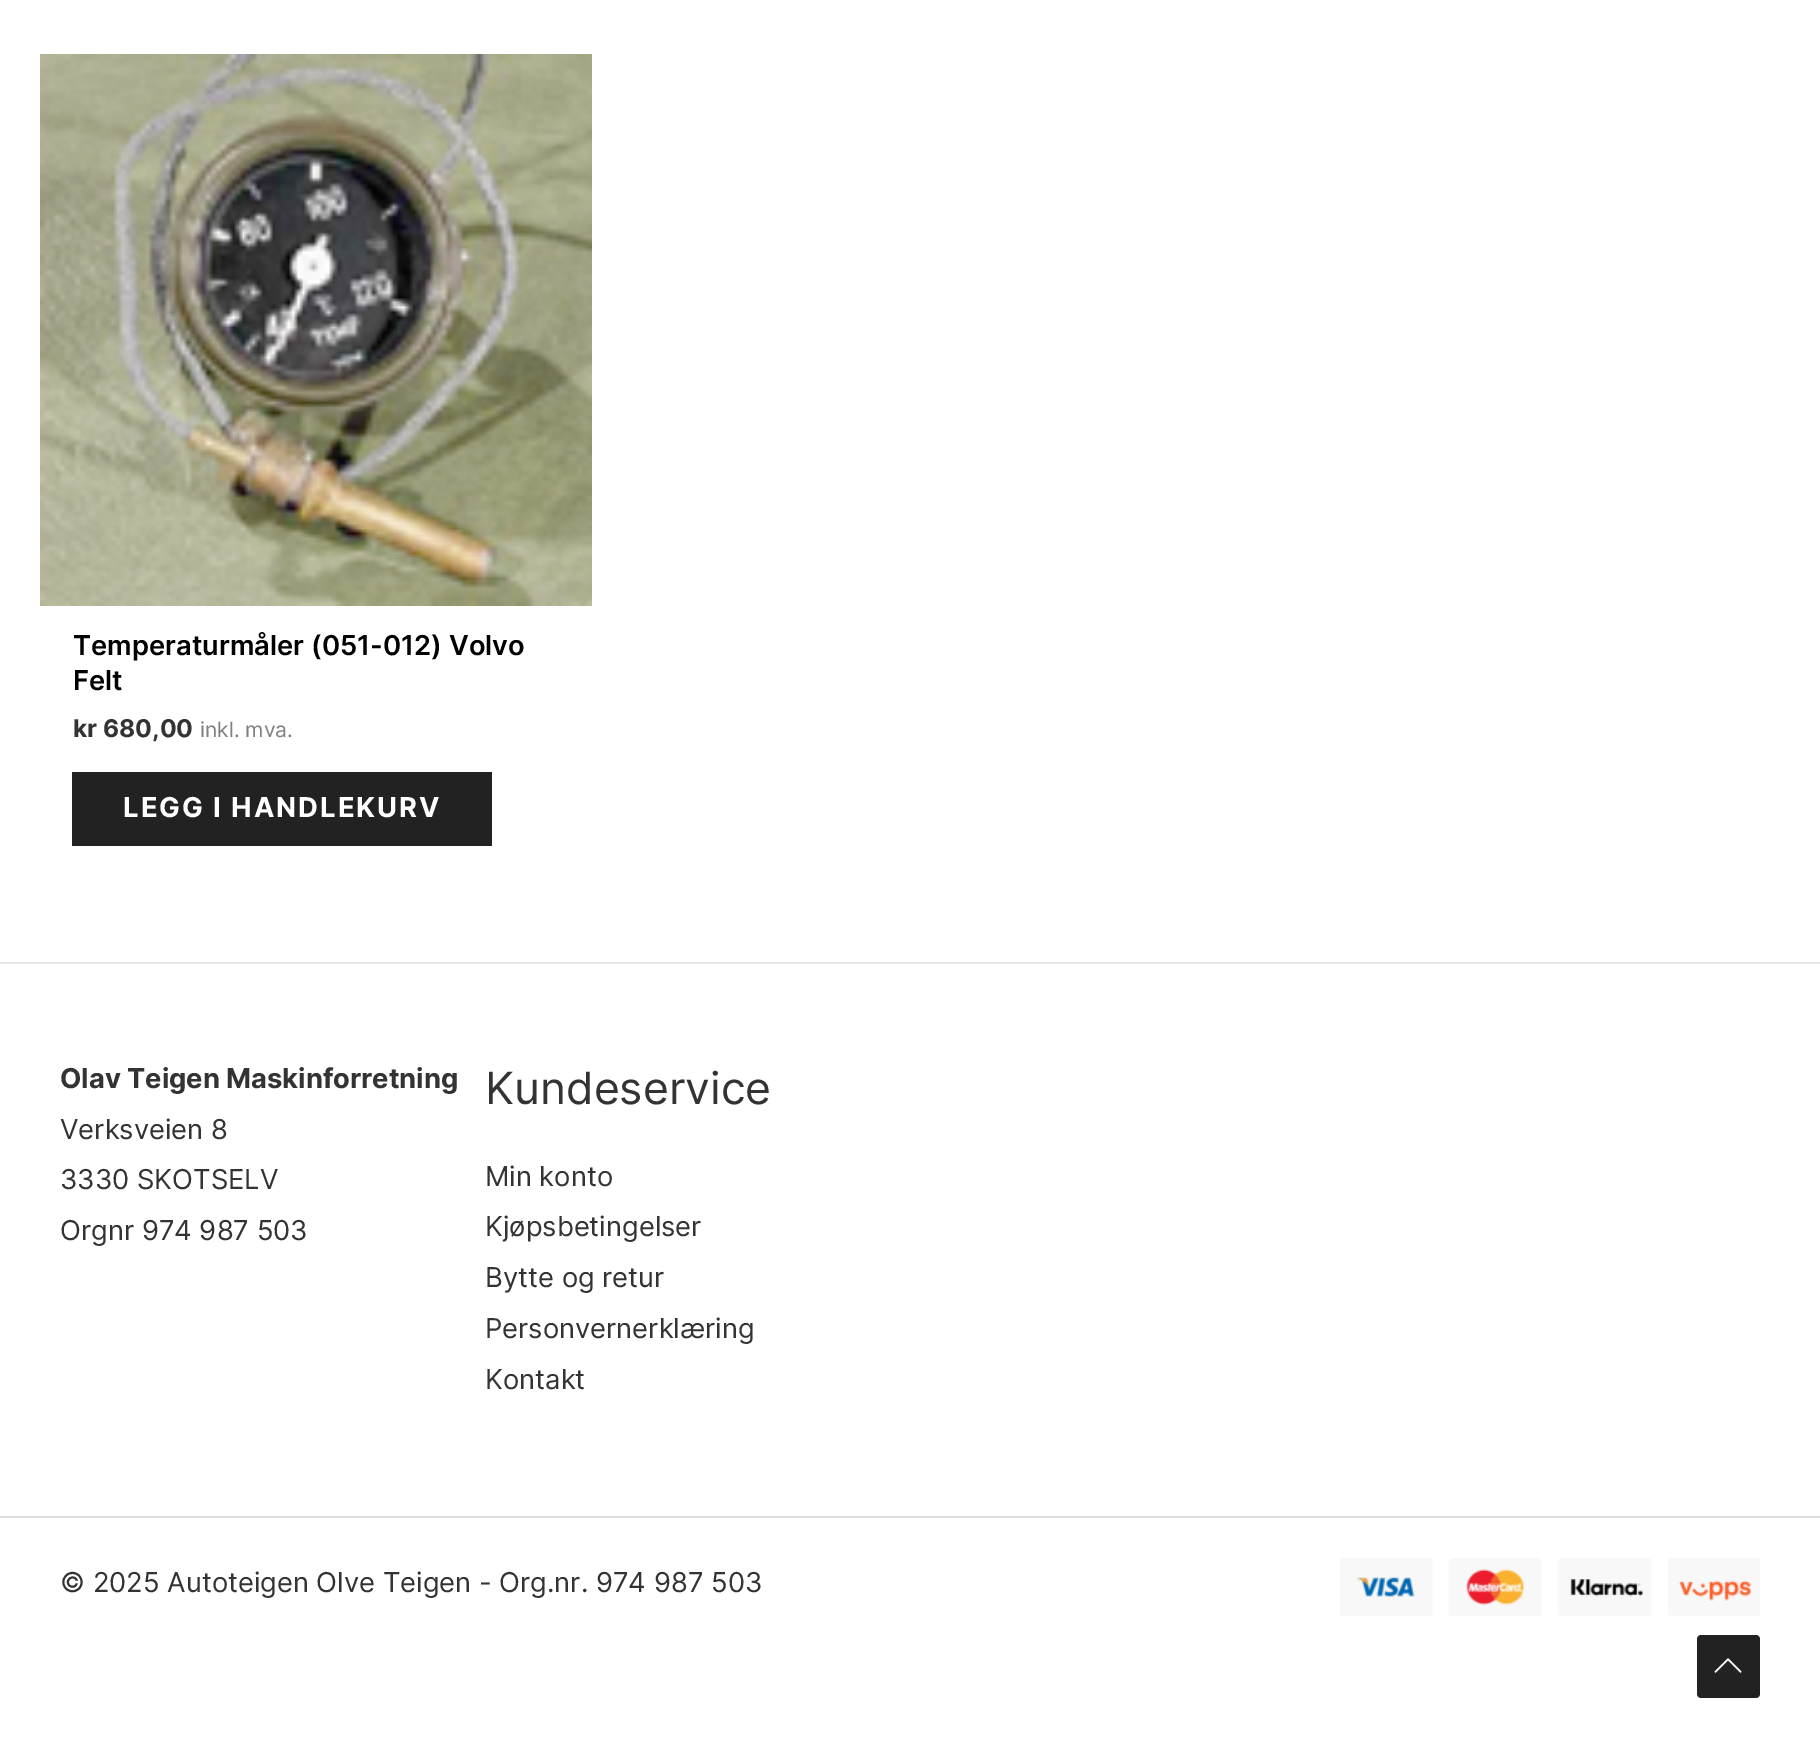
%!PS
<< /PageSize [1820 1758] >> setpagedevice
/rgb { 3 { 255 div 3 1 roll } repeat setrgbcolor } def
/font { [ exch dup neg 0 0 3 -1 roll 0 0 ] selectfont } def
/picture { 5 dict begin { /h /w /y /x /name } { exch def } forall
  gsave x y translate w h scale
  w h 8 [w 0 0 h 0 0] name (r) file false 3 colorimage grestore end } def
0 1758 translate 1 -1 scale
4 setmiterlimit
255 255 255 rgb
0 0 1820 1758 rectfill
(img/1.rgb) 40 54 552 552 picture
[
  [72 772 420 74 34 34 34]
  [0 962 1820 2 230 230 230]
  [0 1516 1820 2 221 221 221]
] { aload pop rgb rectfill } forall
(img/2.rgb) 1340 1558 420 58 picture
34 34 34 rgb
1756 1698 moveto 1701 1698 lineto 1699 1698 1697 1696 1697 1694 curveto 1697 1639 lineto 1697 1637 1699 1635 1701 1635 curveto 1756 1635 lineto 1758 1635 1760 1637 1760 1639 curveto 1760 1694 lineto 1760 1696 1758 1698 1756 1698 curveto closepath fill
(img/3.rgb) 1714 1658 28 15 picture
/Inter-SemiBold 27.35 font
0 0 0 rgb
73 655 moveto (Temperaturmåler \(051-012\) Volvo) show
73 690 moveto (Felt) show
/Inter-Bold 24.5 font
51 51 51 rgb
73 737 moveto (kr 680,00) show
/Inter-Regular 21 font
128 128 128 rgb
200 737 moveto (inkl. mva.) show
/Inter-Bold 27.35 font
255 255 255 rgb
123 817 moveto 2 0 (LEGG I HANDLEKURV) ashow
51 51 51 rgb
60 1088 moveto (Olav Teigen Maskinforretning) show
/Inter-Regular 27.35 font
[
  [(Verksveien 8) 60 1139]
  [(3330 SKOTSELV) 60 1189]
  [(Orgnr 974 987 503) 60 1240]
] { aload pop moveto show } forall
/Inter-Regular 44.5 font
485 1104 moveto (Kundeservice) show
/Inter-Regular 27.35 font
[
  [(Min konto) 485 1186]
  [(Kjøpsbetingelser) 485 1236]
  [(Bytte og retur) 485 1287]
  [(Personvernerklæring) 485 1338]
  [(Kontakt) 485 1389]
  [(© 2025 Autoteigen Olve Teigen - Org.nr. 974 987 503) 60 1592]
] { aload pop moveto show } forall
showpage
